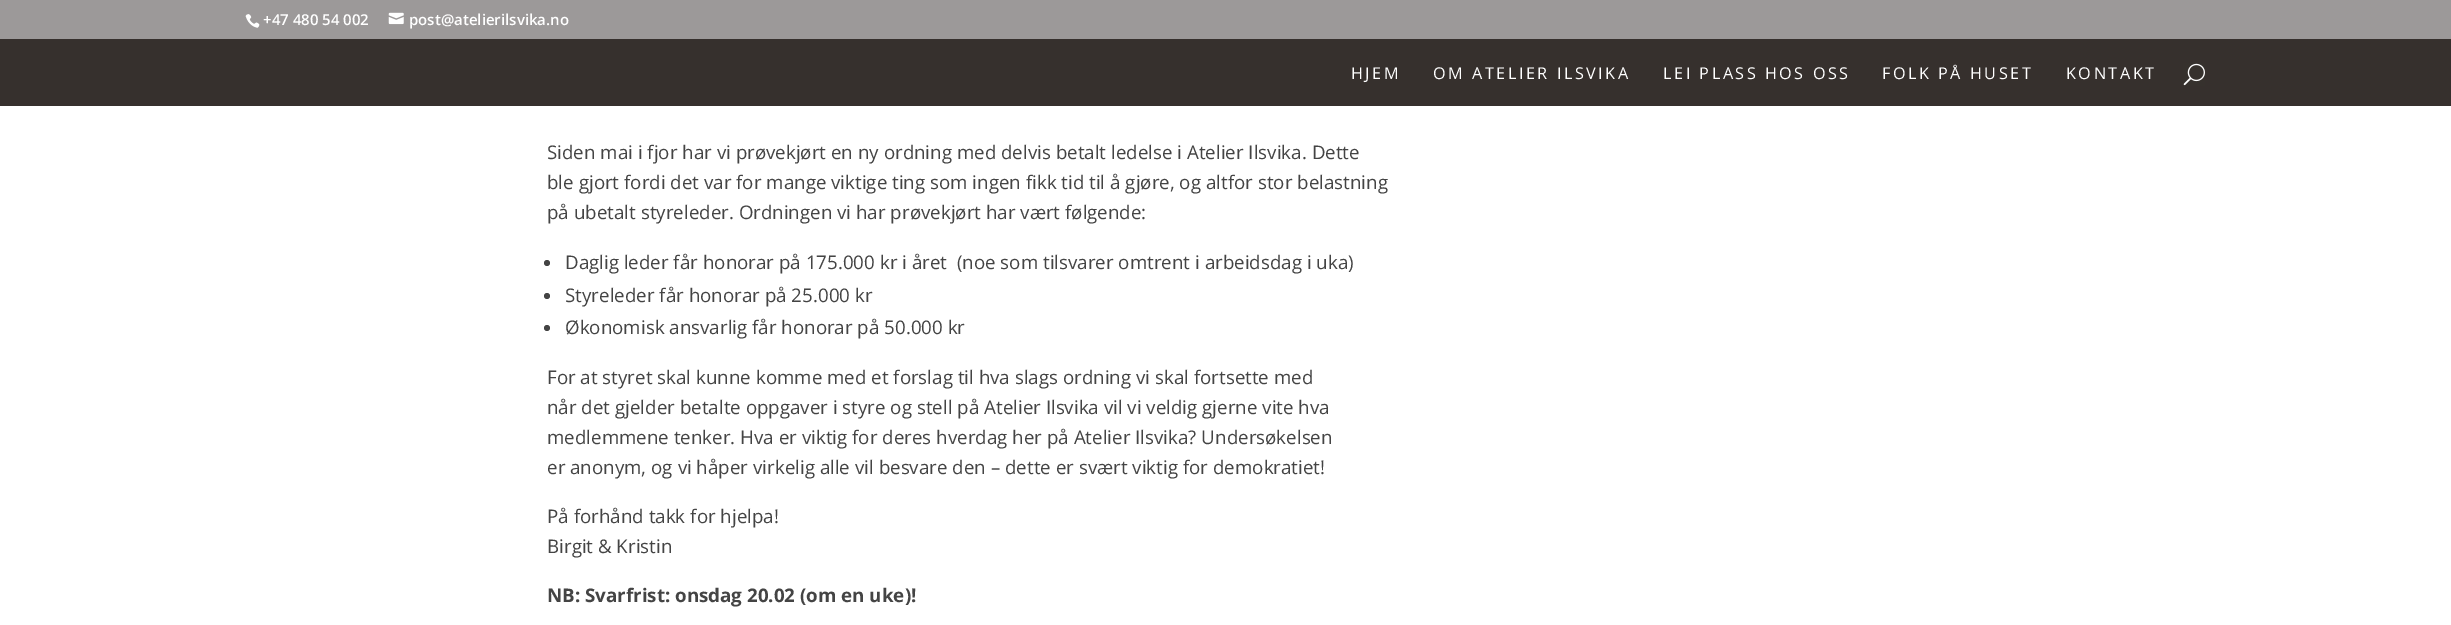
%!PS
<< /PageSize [2451 625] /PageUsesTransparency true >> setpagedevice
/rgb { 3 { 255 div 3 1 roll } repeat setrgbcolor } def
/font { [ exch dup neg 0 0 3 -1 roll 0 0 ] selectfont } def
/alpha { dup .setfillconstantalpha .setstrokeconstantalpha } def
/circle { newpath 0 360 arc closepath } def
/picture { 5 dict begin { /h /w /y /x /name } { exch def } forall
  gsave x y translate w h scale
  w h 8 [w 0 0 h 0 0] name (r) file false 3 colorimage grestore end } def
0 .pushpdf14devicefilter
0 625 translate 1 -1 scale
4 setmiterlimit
255 255 255 rgb
0 0 2451 625 rectfill
156 153 153 rgb
0 0 2451 39 rectfill
(img/1.rgb) 245 14 15 14 picture
(img/2.rgb) 388 12 16 13 picture
0.9 alpha
32 26 22 rgb
0 39 2451 67 rectfill
1 alpha
(img/3.rgb) 2183 63 22 23 picture
68 68 68 rgb
547 263 3 circle fill
547 296 3 circle fill
547 328 3 circle fill
/OpenSans-SemiBold 15 font
255 255 255 rgb
263 25 moveto (+47 480 54 002) show
409 25 moveto (post@atelierilsvika.no) show
/OpenSans-Regular 16.25 font
1351 79 moveto 2.5 0 (HJEM) ashow
1433 79 moveto 2.5 0 (OM ATELIER ILSVIKA) ashow
1663 79 moveto 2.5 0 (LEI PLASS HOS OSS) ashow
1882 79 moveto 2.5 0 (FOLK PÅ HUSET) ashow
2066 79 moveto 2.5 0 (KONTAKT) ashow
/OpenSans-Regular 18.75 font
68 68 68 rgb
[
  [(Siden mai i fjor har vi prøvekjørt en ny ordning med delvis betalt ledelse i Atelier Ilsvika. Dette) 547 159]
  [(ble gjort fordi det var for mange viktige ting som ingen fikk tid til å gjøre, og altfor stor belastning) 547 189]
  [(på ubetalt styreleder. Ordningen vi har prøvekjørt har vært følgende:) 547 219]
  [(Daglig leder får honorar på 175.000 kr i året  \(noe som tilsvarer omtrent i arbeidsdag i uka\)) 565 269]
  [(Styreleder får honorar på 25.000 kr) 565 302]
  [(Økonomisk ansvarlig får honorar på 50.000 kr) 565 334]
  [(For at styret skal kunne komme med et forslag til hva slags ordning vi skal fortsette med) 547 384]
  [(når det gjelder betalte oppgaver i styre og stell på Atelier Ilsvika vil vi veldig gjerne vite hva) 547 414]
  [(medlemmene tenker. Hva er viktig for deres hverdag her på Atelier Ilsvika? Undersøkelsen) 547 444]
  [(er anonym, og vi håper virkelig alle vil besvare den – dette er svært viktig for demokratiet!) 547 474]
  [(På forhånd takk for hjelpa!) 547 523]
  [(Birgit & Kristin) 547 553]
] { aload pop moveto show } forall
/OpenSans-Bold 18.75 font
547 602 moveto (NB: Svarfrist: onsdag 20.02 \(om en uke\)!) show
.poppdf14devicefilter showpage
